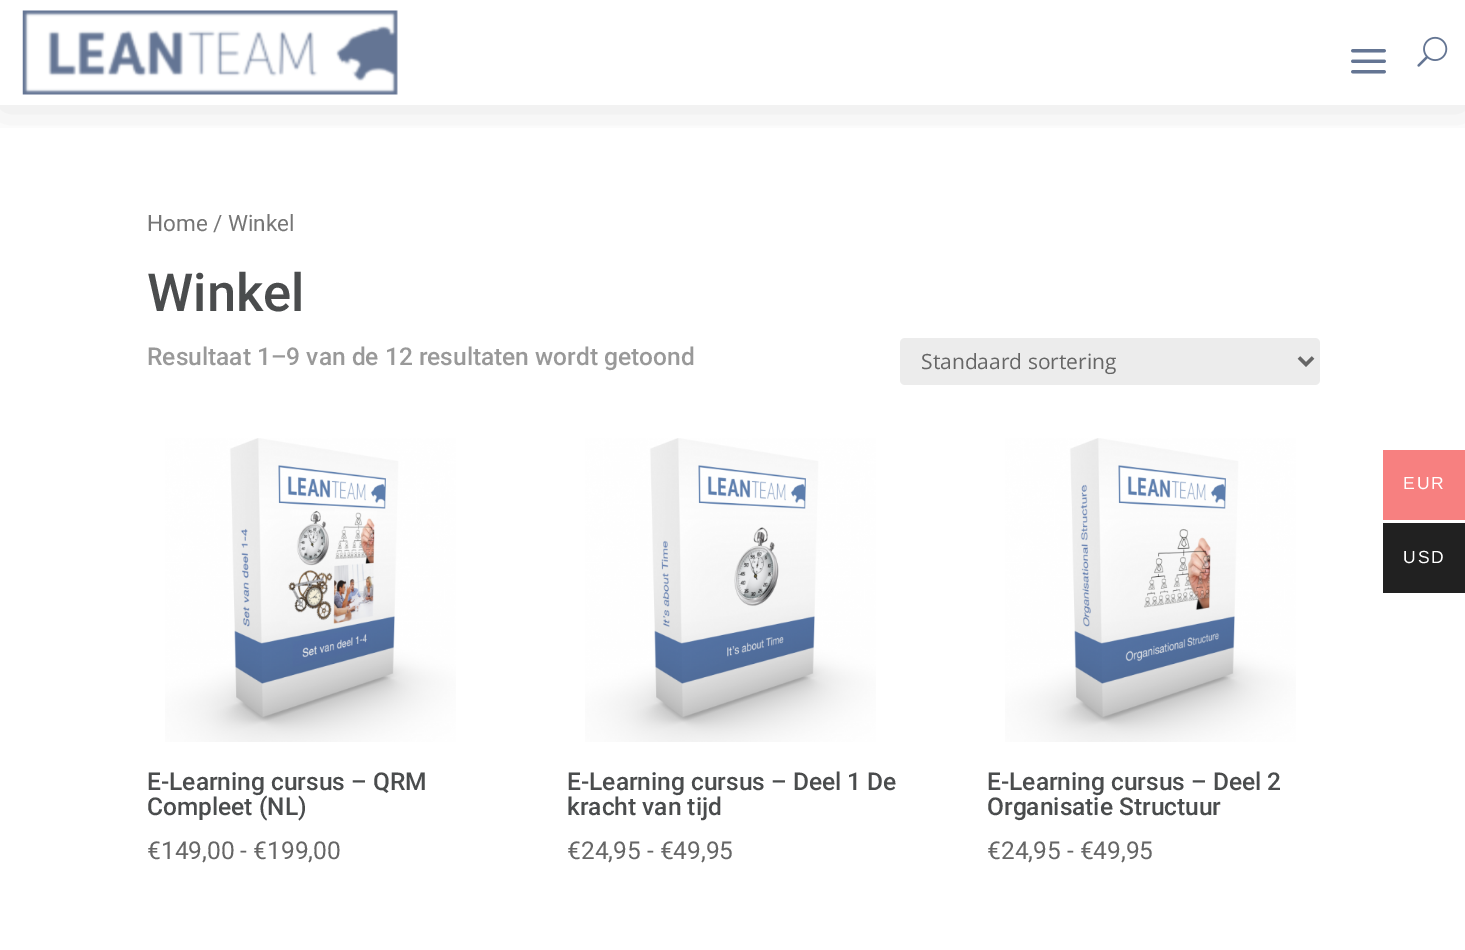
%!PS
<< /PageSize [1465 950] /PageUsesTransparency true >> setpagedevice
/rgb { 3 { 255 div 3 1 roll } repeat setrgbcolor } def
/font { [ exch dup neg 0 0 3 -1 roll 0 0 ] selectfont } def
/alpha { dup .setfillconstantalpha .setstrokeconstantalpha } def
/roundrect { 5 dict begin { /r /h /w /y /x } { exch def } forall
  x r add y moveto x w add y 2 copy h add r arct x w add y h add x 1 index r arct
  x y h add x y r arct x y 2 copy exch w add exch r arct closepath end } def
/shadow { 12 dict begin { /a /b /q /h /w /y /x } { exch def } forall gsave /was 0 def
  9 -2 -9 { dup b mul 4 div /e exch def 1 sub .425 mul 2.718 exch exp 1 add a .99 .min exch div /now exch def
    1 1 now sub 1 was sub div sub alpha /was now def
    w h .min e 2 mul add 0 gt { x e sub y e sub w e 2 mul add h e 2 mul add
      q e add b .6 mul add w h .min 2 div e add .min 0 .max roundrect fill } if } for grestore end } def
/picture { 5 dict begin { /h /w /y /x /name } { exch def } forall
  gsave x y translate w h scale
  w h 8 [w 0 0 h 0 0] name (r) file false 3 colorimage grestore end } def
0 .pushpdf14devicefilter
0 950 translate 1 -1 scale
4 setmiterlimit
255 255 255 rgb
0 0 1465 950 rectfill
gsave
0 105 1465 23 rectclip
0 0 0 rgb
0 4 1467 105 0 22 0.1 shadow
grestore
(img/1.rgb) 22 10 376 85 picture
(img/2.rgb) 1351 49 35 25 picture
(img/3.rgb) 1417 36 31 31 picture
236 236 236 rgb
900 338 420 47 5 roundrect fill
102 102 102 rgb
3.5 setlinewidth
1299 357.5 moveto 1306 364.5 lineto 1313 357.5 lineto stroke
(img/4.rgb) 165 438 291 304 picture
(img/5.rgb) 585 438 291 304 picture
(img/6.rgb) 1005 438 291 304 picture
247 128 128 rgb
1383 450 82 70 rectfill
33 33 33 rgb
1383 523 82 70 rectfill
/Roboto-Regular 22.5 font
118 118 118 rgb
147 231 moveto (Home / Winkel) show
/Roboto-Medium 52.5 font
74 76 77 rgb
147 311 moveto (Winkel) show
/Roboto-Medium 24.5 font
153 153 153 rgb
147 365 moveto (Resultaat 1–9 van de 12 resultaten wordt getoond) show
/OpenSans-Regular 21 font
102 102 102 rgb
921 369 moveto (Standaard sortering) show
/Roboto-Medium 24.5 font
74 76 77 rgb
147 790 moveto (E-Learning cursus – QRM) show
147 815 moveto (Compleet \(NL\)) show
/Roboto-Regular 24.5 font
102 102 102 rgb
147 859 moveto (€149,00 - €199,00) show
/Roboto-Medium 24.5 font
74 76 77 rgb
567 790 moveto (E-Learning cursus – Deel 1 De) show
567 815 moveto (kracht van tijd) show
/Roboto-Regular 24.5 font
102 102 102 rgb
567 859 moveto (€24,95 - €49,95) show
/Roboto-Medium 24.5 font
74 76 77 rgb
987 790 moveto (E-Learning cursus – Deel 2) show
987 815 moveto (Organisatie Structuur) show
/Roboto-Regular 24.5 font
102 102 102 rgb
987 859 moveto (€24,95 - €49,95) show
/LiberationSans-Regular 17.5 font
255 255 255 rgb
1403 489 moveto 2 0 (EUR) ashow
1403 563 moveto 2 0 (USD) ashow
.poppdf14devicefilter showpage
